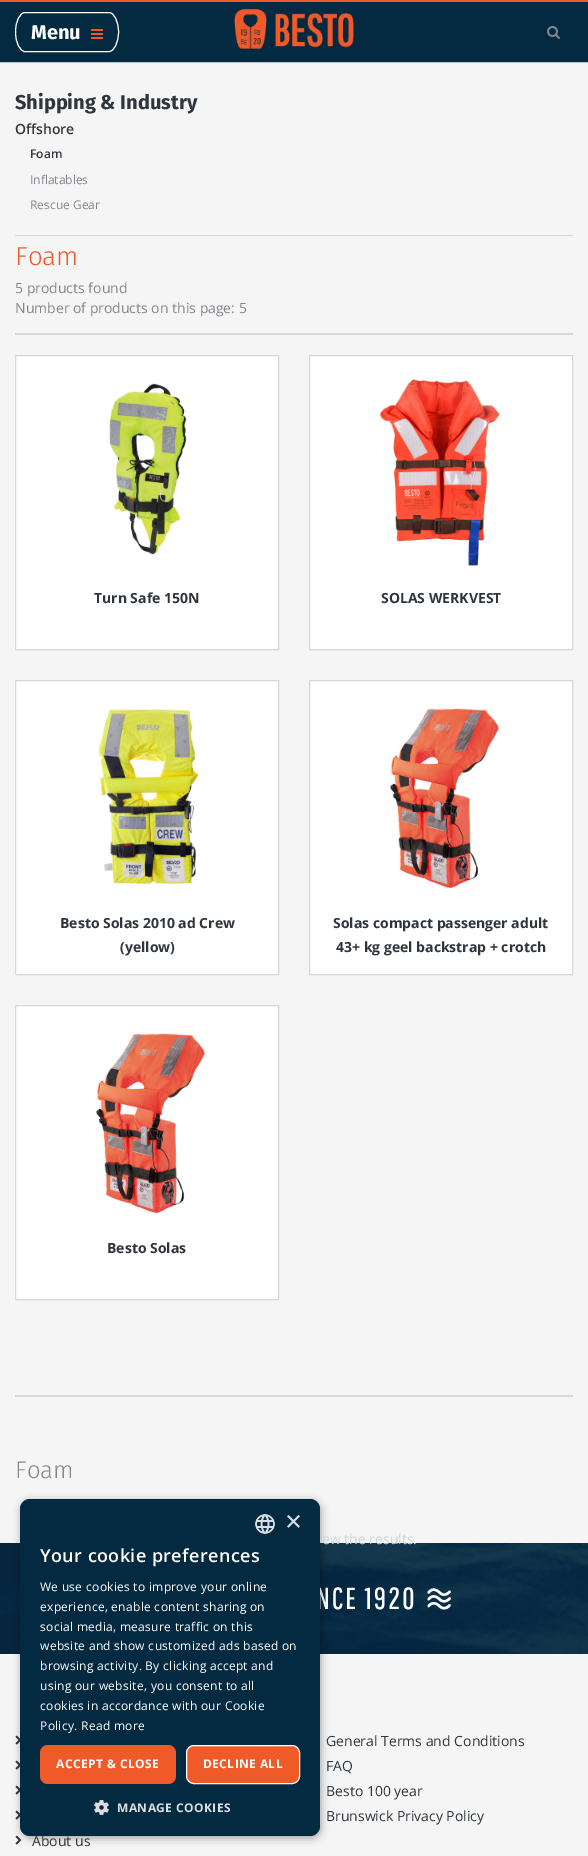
%!PS
<< /PageSize [588 1856] /PageUsesTransparency true >> setpagedevice
/rgb { 3 { 255 div 3 1 roll } repeat setrgbcolor } def
/font { [ exch dup neg 0 0 3 -1 roll 0 0 ] selectfont } def
/alpha { dup .setfillconstantalpha .setstrokeconstantalpha } def
/roundrect { 5 dict begin { /r /h /w /y /x } { exch def } forall
  x r add y moveto x w add y 2 copy h add r arct x w add y h add x 1 index r arct
  x y h add x y r arct x y 2 copy exch w add exch r arct closepath end } def
/shadow { 12 dict begin { /a /b /q /h /w /y /x } { exch def } forall gsave /was 0 def
  9 -2 -9 { dup b mul 4 div /e exch def 1 sub .425 mul 2.718 exch exp 1 add a .99 .min exch div /now exch def
    1 1 now sub 1 was sub div sub alpha /was now def
    w h .min e 2 mul add 0 gt { x e sub y e sub w e 2 mul add h e 2 mul add
      q e add b .6 mul add w h .min 2 div e add .min 0 .max roundrect fill } if } for grestore end } def
/picture { 5 dict begin { /h /w /y /x /name } { exch def } forall
  gsave x y translate w h scale
  w h 8 [w 0 0 h 0 0] name (r) file false 3 colorimage grestore end } def
0 .pushpdf14devicefilter
0 1856 translate 1 -1 scale
4 setmiterlimit
245 245 245 rgb
0 0 588 1856 rectfill
[
  [0 62 588 1 196 196 196]
  [0 2 588 60 4 42 66]
  [0 0 588 2 241 89 42]
] { aload pop rgb rectfill } forall
255 255 255 rgb
25 12.5 moveto 109 12.5 lineto 114 12.5 118.5 21 118.5 32 curveto 118.5 43 114 51.5 109 51.5 curveto 25 51.5 lineto 20 51.5 15.5 43 15.5 32 curveto 15.5 21 20 12.5 25 12.5 curveto closepath stroke
(img/1.rgb) 91 29 12 10 picture
13 44 65 rgb
234 52 120 1 rectfill
(img/2.rgb) 234 9 120 40 picture
(img/3.rgb) 547 26 13 13 picture
216 214 214 rgb
15 235 558 1 rectfill
15 333 558 2 rectfill
255 255 255 rgb
15.5 355.5 moveto 278.5 355.5 lineto 278.5 649.5 lineto 15.5 649.5 lineto closepath gsave fill grestore
216 214 214 rgb
stroke
(img/4.rgb) 109 383 78 172 picture
255 255 255 rgb
309.5 355.5 moveto 572.5 355.5 lineto 572.5 649.5 lineto 309.5 649.5 lineto closepath gsave fill grestore
216 214 214 rgb
stroke
(img/5.rgb) 378 378 124 188 picture
255 255 255 rgb
15.5 680.5 moveto 278.5 680.5 lineto 278.5 974.5 lineto 15.5 974.5 lineto closepath gsave fill grestore
216 214 214 rgb
stroke
(img/6.rgb) 98 709 102 176 picture
255 255 255 rgb
309.5 680.5 moveto 572.5 680.5 lineto 572.5 974.5 lineto 309.5 974.5 lineto closepath gsave fill grestore
216 214 214 rgb
stroke
(img/7.rgb) 390 708 110 180 picture
255 255 255 rgb
15.5 1005.5 moveto 278.5 1005.5 lineto 278.5 1299.5 lineto 15.5 1299.5 lineto closepath gsave fill grestore
216 214 214 rgb
stroke
(img/8.rgb) 96 1033 110 180 picture
15 1395 558 2 rectfill
4 42 66 rgb
0 1543 588 111 rectfill
(img/11.rgb) 0 1543 588 111 picture
(img/12.rgb) 320 1587 131 23 picture
(img/13.rgb) 15 1735 5 10 picture
(img/13.rgb) 15 1760 5 10 picture
(img/13.rgb) 15 1785 5 10 picture
(img/13.rgb) 15 1810 5 10 picture
(img/14.rgb) 15 1835 7 10 picture
0 0 0 rgb
21 1501 300 337 10 4 0.35 shadow
/FiraSans-Bold 20 font
255 255 255 rgb
31 39 moveto (Menu) show
47 53 60 rgb
15 109 moveto (Shipping & Industry) show
/OpenSans-SemiBold 14 font
15 134 moveto (Offshore) show
/OpenSans-SemiBold 12 font
30 158 moveto (Foam) show
/OpenSans-Regular 12 font
130 134 140 rgb
30 184 moveto (Inflatables) show
30 209 moveto (Rescue Gear) show
/FiraSans-Light 26 font
241 89 42 rgb
15 265 moveto (Foam) show
/OpenSans-Regular 14 font
130 134 140 rgb
15 293 moveto (5 products found) show
15 313 moveto (Number of products on this page: 5) show
/OpenSans-Bold 14 font
47 53 60 rgb
[
  [(Turn Safe 150N) 94 603]
  [(SOLAS WERKVEST) 381 603]
  [(Besto Solas 2010 ad Crew) 60 928]
  [(\(yellow\)) 120 952]
  [(Solas compact passenger adult) 333 928]
  [(43+ kg geel backstrap + crotch) 336 952]
  [(Besto Solas) 107 1253]
] { aload pop moveto show } forall
/OpenSans-Regular 14 font
208 213 217 rgb
322 1544 moveto (ew the results.) show
/FiraSans-Light 24 font
130 134 140 rgb
15 1478 moveto (Foam) show
/OpenSans-Regular 14 font
47 53 60 rgb
[
  [(General Terms and Conditions) 326 1746]
  [(FAQ) 326 1771]
  [(Besto 100 year) 326 1796]
  [(Brunswick Privacy Policy) 326 1821]
  [(About us) 32 1846]
] { aload pop moveto show } forall
4 42 66 rgb
20 1499 300 337 10 roundrect fill
/LiberationSans-Regular 29 font
217 223 227 rgb
285 1531 moveto (×) show
(img/10.rgb) 94 1800 15 15 picture
/OpenSans-Bold 12 font
117 1812 moveto 0.4 0 (MANAGE COOKIES) ashow
(img/9.rgb) 255 1514 20 20 picture
240 90 40 rgb
186.5 1745.5 113 38 7.5 roundrect gsave fill grestore
255 255 255 rgb
stroke
203 1768 moveto 0.4 0 (DECLINE ALL) ashow
240 90 40 rgb
40 1745 136 39 8 roundrect fill
255 255 255 rgb
56 1768 moveto 0.4 0 (ACCEPT & CLOSE) ashow
/OpenSans-Regular 12 font
40 1730 moveto 0.3 0 (Policy. Read more) ashow
40 1710 moveto 0.3 0 (cookies in accordance with our Cookie) ashow
40 1690 moveto 0.3 0 (using our website, you consent to all) ashow
40 1670 moveto 0.3 0 (browsing activity. By clicking accept and) ashow
40 1650 moveto 0.3 0 (website and show customized ads based on) ashow
40 1631 moveto 0.3 0 (social media, measure traffic on this) ashow
40 1611 moveto 0.3 0 (experience, enable content sharing on) ashow
40 1591 moveto 0.3 0 (We use cookies to improve your online) ashow
/OpenSans-SemiBold 18 font
40 1562 moveto 0.4 0 (Your cookie preferences) ashow
.poppdf14devicefilter showpage
